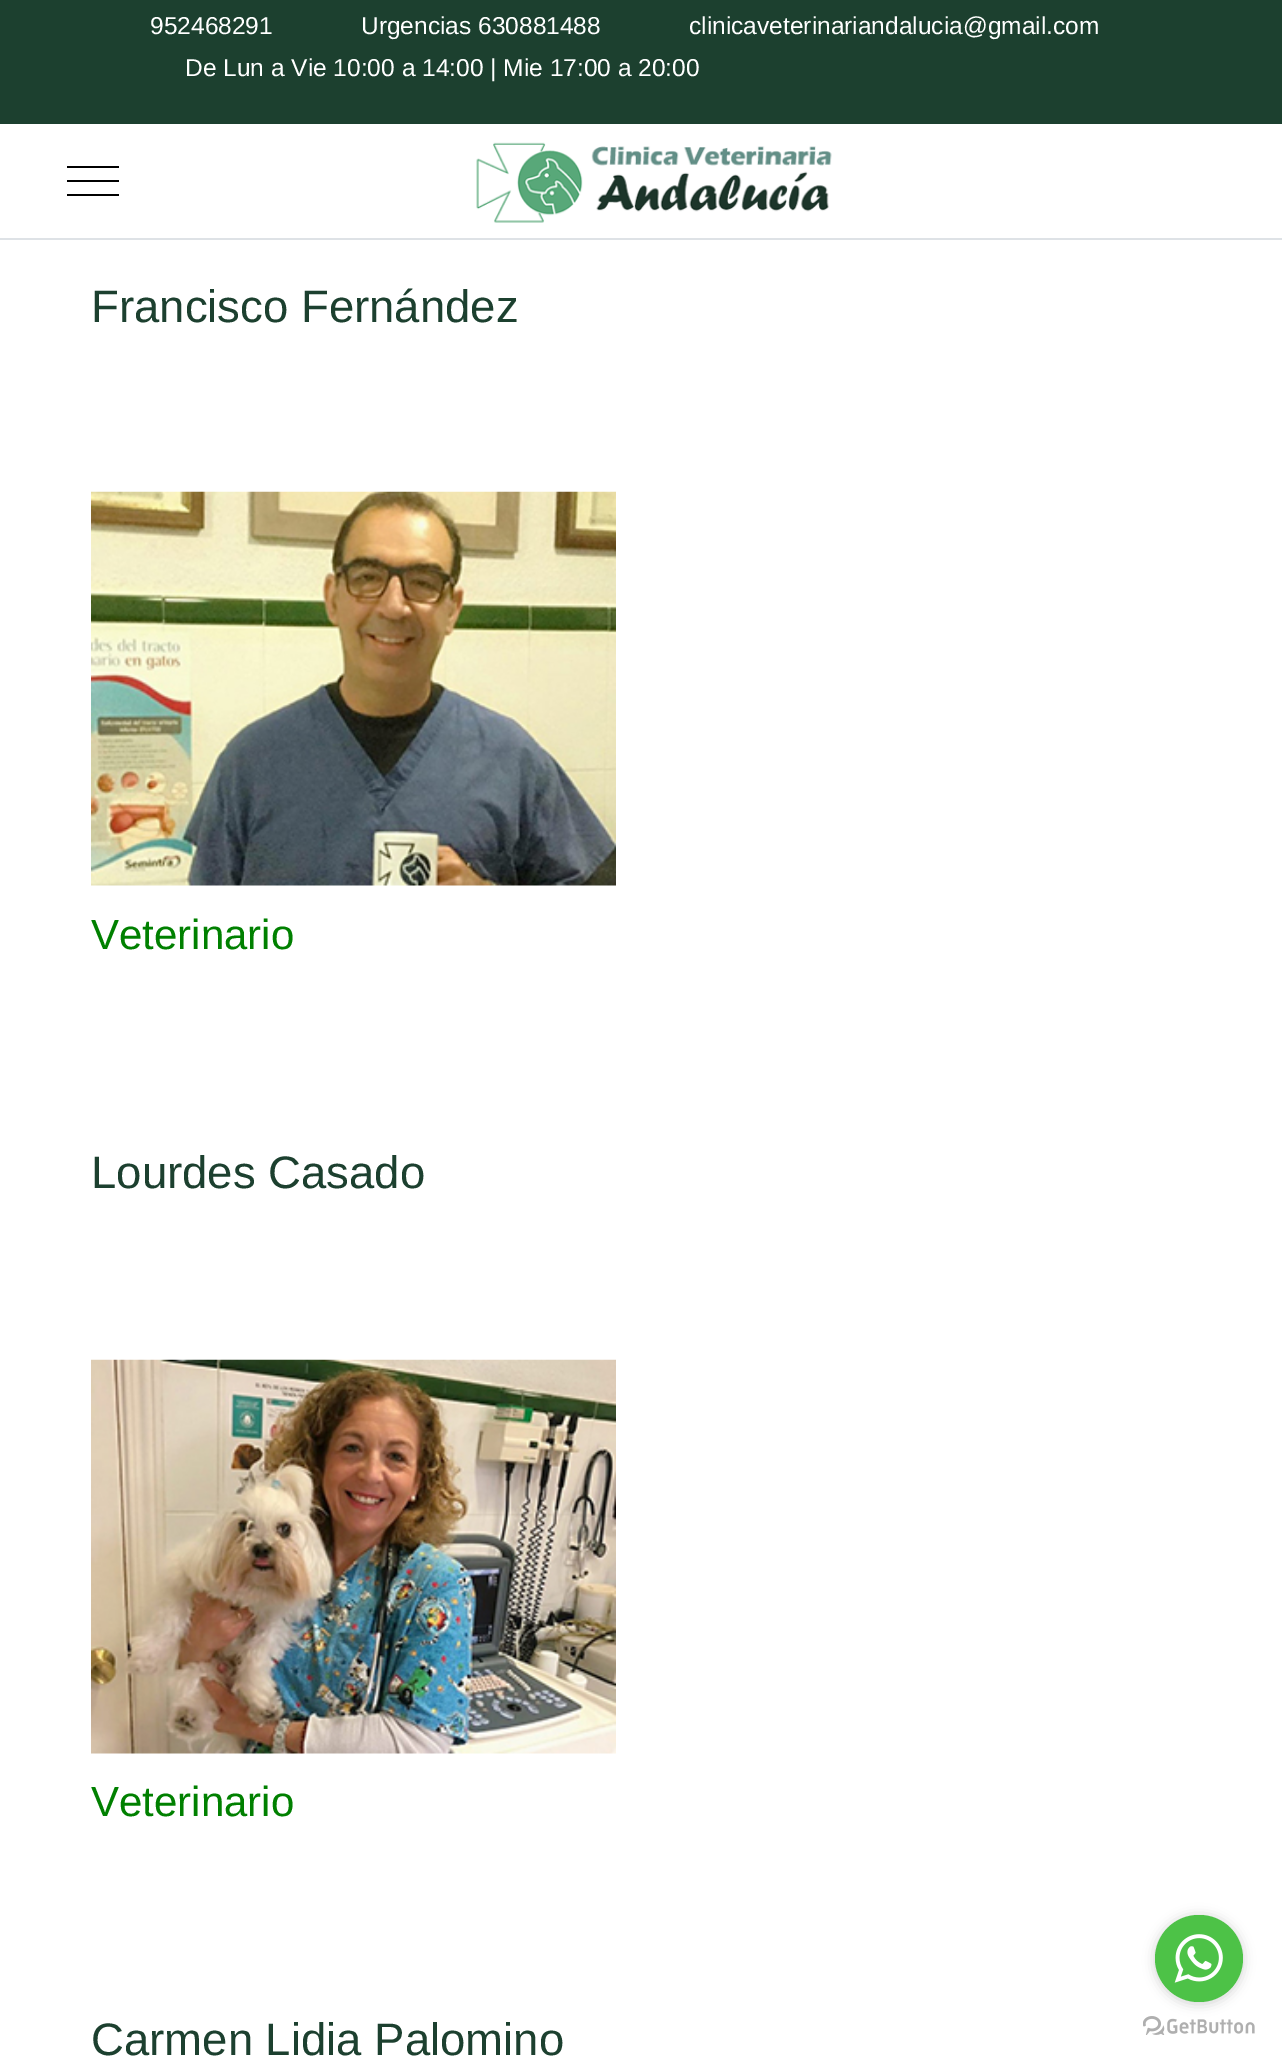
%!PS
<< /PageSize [1282 2059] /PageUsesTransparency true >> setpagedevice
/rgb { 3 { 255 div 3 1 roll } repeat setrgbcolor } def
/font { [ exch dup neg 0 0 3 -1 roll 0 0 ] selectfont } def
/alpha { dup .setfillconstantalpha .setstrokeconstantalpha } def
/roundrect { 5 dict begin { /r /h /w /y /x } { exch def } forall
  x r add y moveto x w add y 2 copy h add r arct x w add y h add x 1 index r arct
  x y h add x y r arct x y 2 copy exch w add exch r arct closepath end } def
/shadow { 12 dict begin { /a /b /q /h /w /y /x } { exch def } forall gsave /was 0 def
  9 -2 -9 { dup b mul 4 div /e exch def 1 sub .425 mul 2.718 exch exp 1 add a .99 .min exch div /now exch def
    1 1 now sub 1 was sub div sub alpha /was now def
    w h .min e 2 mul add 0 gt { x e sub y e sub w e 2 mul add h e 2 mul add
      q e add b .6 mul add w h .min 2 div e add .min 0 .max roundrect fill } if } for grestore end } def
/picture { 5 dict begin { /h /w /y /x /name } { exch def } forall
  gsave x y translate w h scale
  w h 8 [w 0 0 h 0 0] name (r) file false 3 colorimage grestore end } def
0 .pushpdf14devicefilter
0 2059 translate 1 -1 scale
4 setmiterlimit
255 255 255 rgb
0 0 1282 2059 rectfill
[
  [0 0 1282 124 28 64 47]
  [0 238 1282 2 222 226 230]
  [67 180 52 2 0 0 0]
  [67 166 52 2 0 0 0]
  [67 194 52 2 0 0 0]
] { aload pop rgb rectfill } forall
(img/1.rgb) 476 142 356 81 picture
(img/2.rgb) 91 491 525 395 picture
(img/3.rgb) 91 1359 525 395 picture
(img/5.rgb) 1143 2016 112 19 picture
136 136 136 rgb
1155 1916 88 88 44 6 0.4 shadow
77 194 71 rgb
1155 1915 88 87 43.5 roundrect fill
(img/4.rgb) 1174 1934 49 49 picture
/LiberationSans-Regular 24.5 font
255 255 255 rgb
[
  [(952468291) 150 34]
  [(Urgencias 630881488) 361 34]
  [(clinicaveterinariandalucia@gmail.com) 689 34]
  [(De Lun a Vie 10:00 a 14:00 | Mie 17:00 a 20:00) 185 76]
] { aload pop moveto show } forall
/LiberationSans-Regular 45.5 font
28 64 47 rgb
91 322 moveto (Francisco Fernández) show
/LiberationSans-Regular 42 font
0 128 0 rgb
91 949 moveto (Veterinario) show
/LiberationSans-Regular 45.5 font
28 64 47 rgb
91 1188 moveto (Lourdes Casado) show
/LiberationSans-Regular 42 font
0 128 0 rgb
91 1816 moveto (Veterinario) show
/LiberationSans-Regular 45.5 font
28 64 47 rgb
91 2055 moveto (Carmen Lidia Palomino) show
.poppdf14devicefilter showpage
